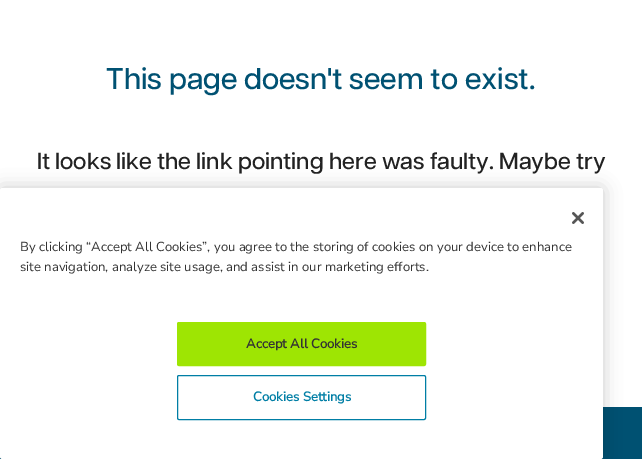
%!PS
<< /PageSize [642 459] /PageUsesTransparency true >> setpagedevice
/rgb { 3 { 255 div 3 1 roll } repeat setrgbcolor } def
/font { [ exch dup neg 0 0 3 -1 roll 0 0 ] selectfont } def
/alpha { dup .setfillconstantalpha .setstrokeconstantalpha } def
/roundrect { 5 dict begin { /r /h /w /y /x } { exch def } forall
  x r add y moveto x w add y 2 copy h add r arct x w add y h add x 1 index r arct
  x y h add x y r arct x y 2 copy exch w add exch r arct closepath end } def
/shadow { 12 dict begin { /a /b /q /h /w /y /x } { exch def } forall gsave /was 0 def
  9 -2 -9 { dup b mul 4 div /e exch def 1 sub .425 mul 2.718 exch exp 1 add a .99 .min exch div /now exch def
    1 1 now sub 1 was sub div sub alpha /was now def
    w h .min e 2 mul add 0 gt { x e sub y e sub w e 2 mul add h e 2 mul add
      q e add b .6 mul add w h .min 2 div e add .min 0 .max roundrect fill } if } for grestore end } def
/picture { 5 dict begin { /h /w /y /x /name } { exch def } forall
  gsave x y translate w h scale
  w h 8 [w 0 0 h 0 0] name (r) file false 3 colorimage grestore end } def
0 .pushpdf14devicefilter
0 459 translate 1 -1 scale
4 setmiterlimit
255 255 255 rgb
0 0 642 459 rectfill
0 81 114 rgb
0 407 642 52 rectfill
0 0 0 rgb
0 188 603 271 2.5 9 0.2 shadow
255 255 255 rgb
0 188 603 271 2.5 roundrect fill
(img/1.rgb) 572 212 12 12 picture
158 229 3 rgb
177.5 322.5 248 43 1.5 roundrect gsave fill grestore
stroke
0 126 165 rgb
177.5 375.5 248 44 1.5 roundrect stroke
/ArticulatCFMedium-Medium 30 font
0 81 114 rgb
106 89 moveto (This page doesn't seem to exist.) show
/ArticulatCFMedium-Medium 23.25 font
34 34 34 rgb
37 169 moveto (It looks like the link pointing here was faulty. Maybe try) show
/NunitoSans-ExtraLight 13.1 font
51 51 51 rgb
20 251 moveto (By clicking “Accept All Cookies”, you agree to the storing of cookies on your device to enhance) show
20 271 moveto (site navigation, analyze site usage, and assist in our marketing efforts.) show
/NunitoSans-Bold 13.1 font
246 348 moveto (Accept All Cookies) show
0 126 165 rgb
253 401 moveto (Cookies Settings) show
.poppdf14devicefilter showpage
